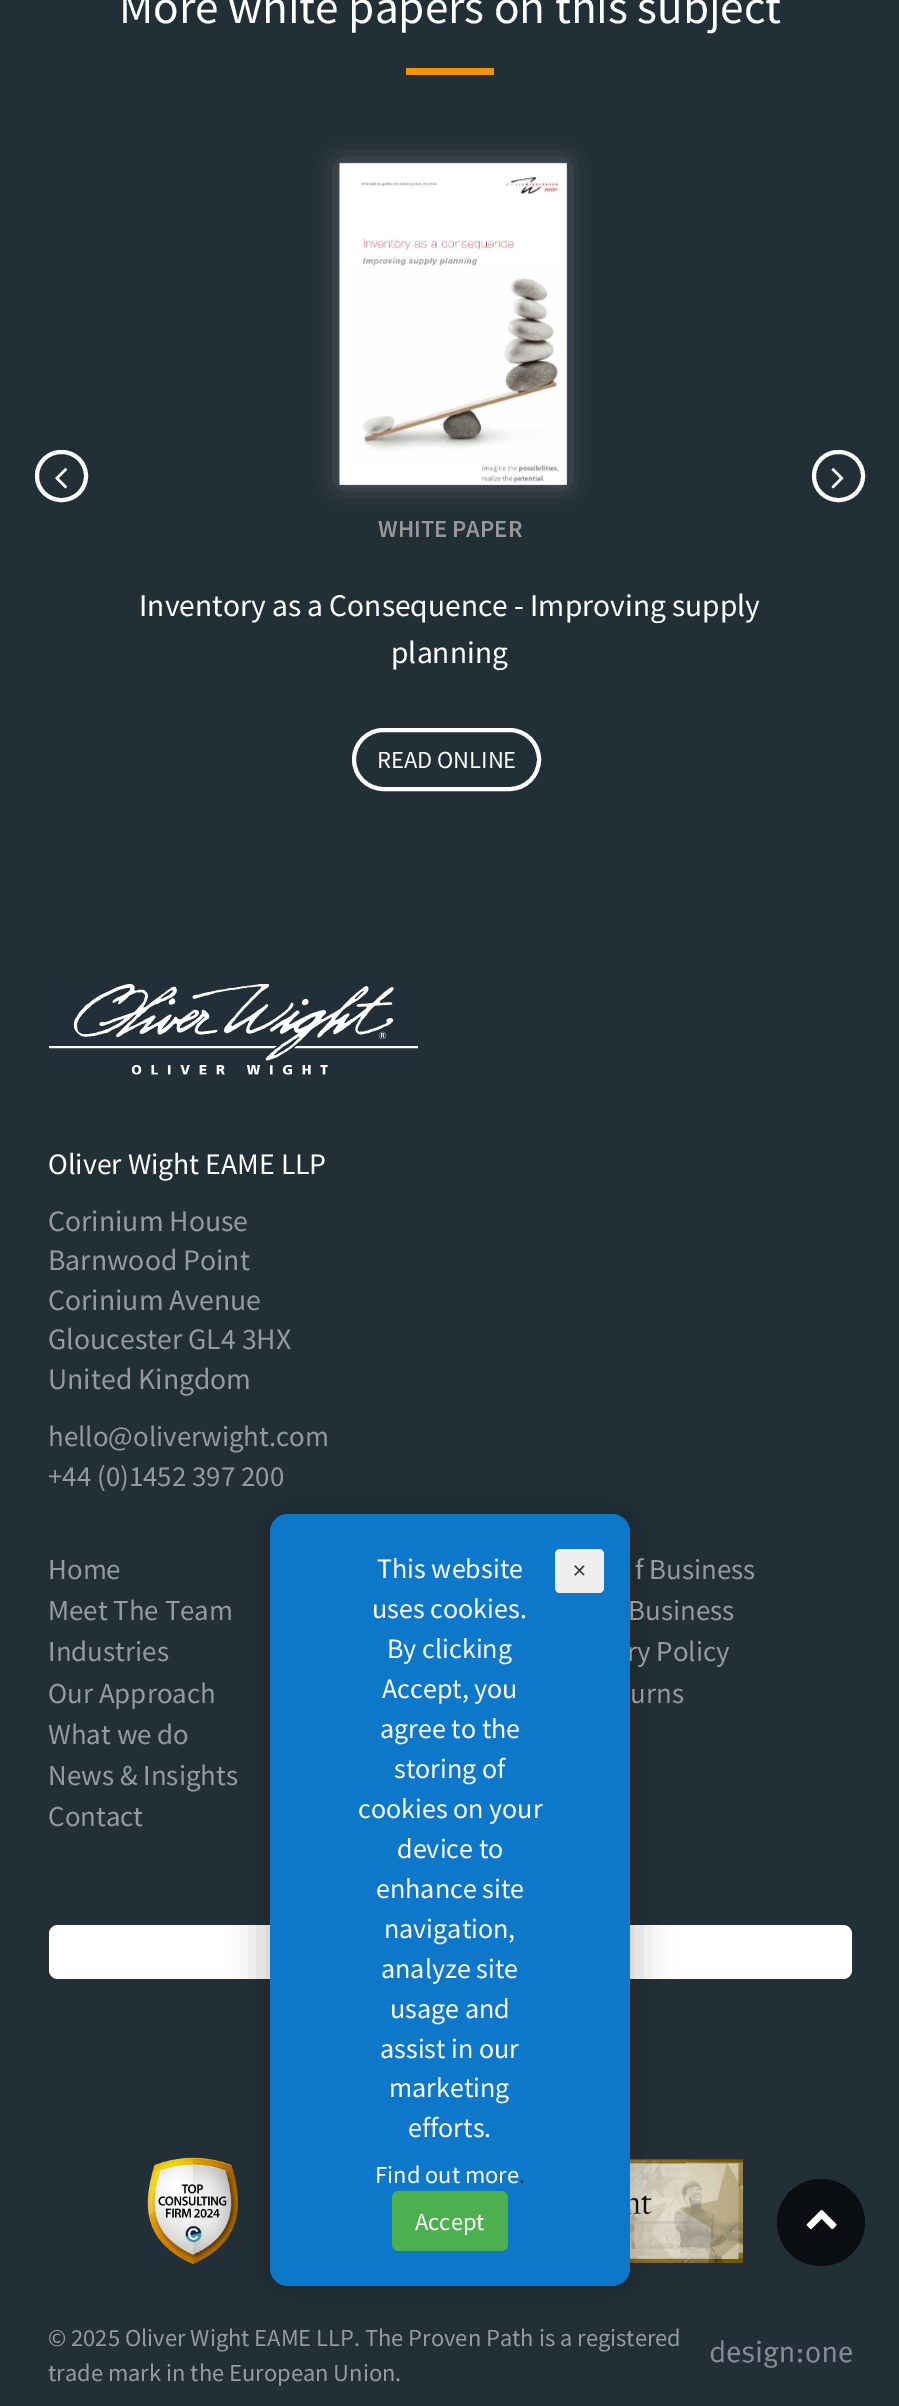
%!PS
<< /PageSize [899 2406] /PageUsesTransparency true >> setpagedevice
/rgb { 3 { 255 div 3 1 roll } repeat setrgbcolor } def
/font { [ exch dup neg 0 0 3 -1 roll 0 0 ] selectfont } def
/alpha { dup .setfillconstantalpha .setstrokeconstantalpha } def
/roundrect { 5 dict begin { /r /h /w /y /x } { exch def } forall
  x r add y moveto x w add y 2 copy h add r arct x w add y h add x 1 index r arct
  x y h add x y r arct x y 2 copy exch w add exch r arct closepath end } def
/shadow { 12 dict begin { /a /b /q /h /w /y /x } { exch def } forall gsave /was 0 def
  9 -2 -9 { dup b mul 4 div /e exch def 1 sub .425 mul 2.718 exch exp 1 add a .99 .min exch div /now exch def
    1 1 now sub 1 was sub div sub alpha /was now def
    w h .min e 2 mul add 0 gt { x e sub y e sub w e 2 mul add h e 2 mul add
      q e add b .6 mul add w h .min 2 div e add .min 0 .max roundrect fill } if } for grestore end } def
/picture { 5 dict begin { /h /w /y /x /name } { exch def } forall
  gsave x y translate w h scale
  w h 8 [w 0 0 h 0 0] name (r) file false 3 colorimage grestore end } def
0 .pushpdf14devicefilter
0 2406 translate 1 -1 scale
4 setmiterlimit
34 47 55 rgb
0 0 899 2406 rectfill
242 148 0 rgb
406 68 88 7 rectfill
255 255 255 rgb
4 setlinewidth
37 452 49 48 24 roundrect stroke
(img/1.rgb) 55 468 13 21 picture
814 452 49 48 24 roundrect stroke
(img/2.rgb) 831 468 13 21 picture
128 128 128 rgb
341 165 224 318 0 12 0.8 shadow
(img/3.rgb) 339 162 228 323 picture
255 255 255 rgb
354 730 185 59 29.5 roundrect stroke
(img/4.rgb) 49 984 369 91 picture
49 1925 803 54 9 roundrect fill
(img/5.rgb) 147 2157 91 107 picture
(img/6.rgb) 630 2159 113 104 picture
(img/7.rgb) 710 2340 143 28 picture
0 0 0 rgb
261 1505 378 789 26 17.5 0.2 shadow
11 14 17 rgb
777 2179 88 87 43.5 roundrect fill
(img/8.rgb) 806 2209 31 21 picture
/SourceSansPro-Regular 47.25 font
255 255 255 rgb
119 23 moveto (More white papers on this subject) show
/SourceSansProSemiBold-SemiBold 24.5 font
151 151 151 rgb
378 537 moveto (WHITE PAPER) show
/SourceSansPro-Regular 31.5 font
255 255 255 rgb
139 616 moveto (Inventory as a Consequence - Improving supply) show
391 663 moveto (planning) show
/SourceSansPro-Regular 24.5 font
377 768 moveto (READ ONLINE) show
/SourceSansPro-Regular 29.75 font
48 1174 moveto (Oliver Wight EAME LLP) show
150 152 162 rgb
[
  [(Corinium House) 48 1231]
  [(Barnwood Point) 48 1270]
  [(Corinium Avenue) 48 1310]
  [(Gloucester GL4 3HX) 48 1349]
  [(United Kingdom) 48 1389]
] { aload pop moveto show } forall
/SourceSansPro-Regular 28.9 font
[
  [(hello@oliverwight.com) 48 1446]
  [(+44 \(0\)1452 397 200) 48 1486]
  [(Home) 48 1579]
  [(Meet The Team) 48 1620]
  [(Industries) 48 1661]
  [(Our Approach) 48 1703]
  [(What we do) 48 1744]
  [(News & Insights) 48 1785]
  [(Contact) 48 1826]
  [(f Business) 635 1579]
  [(Business) 628 1620]
  [(ry Policy) 627 1661]
  [(urns) 630 1703]
] { aload pop moveto show } forall
/SourceSansPro-Regular 24.5 font
48 2346 moveto (© 2025 Oliver Wight EAME LLP. The Proven Path is a registered) show
48 2381 moveto (trade mark in the European Union.) show
13 120 201 rgb
270 1514 360 772 18 roundrect fill
/SourceSansPro-Regular 28 font
255 255 255 rgb
[
  [(This website) 377 1578]
  [(uses cookies.) 372 1618]
  [(By clicking) 387 1658]
  [(Accept, you) 382 1698]
  [(agree to the) 380 1738]
  [(storing of) 394 1778]
  [(cookies on your) 358 1818]
  [(device to) 397 1858]
  [(enhance site) 376 1898]
  [(navigation,) 384 1938]
  [(analyze site) 381 1978]
  [(usage and) 390 2018]
  [(assist in our) 380 2058]
  [(marketing) 389 2097]
  [(efforts.) 408 2137]
] { aload pop moveto show } forall
239 239 239 rgb
555 1549 49 44 5 roundrect fill
/SourceSansPro-Regular 26 font
51 51 51 rgb
573 1579 moveto (×) show
/SourceSansPro-Regular 24.5 font
255 255 255 rgb
375 2183 moveto (Find out more) show
51 51 51 rgb
519 2183 moveto (.) show
76 175 80 rgb
392 2191 116 60 7 roundrect fill
255 255 255 rgb
415 2230 moveto (Accept) show
.poppdf14devicefilter showpage
